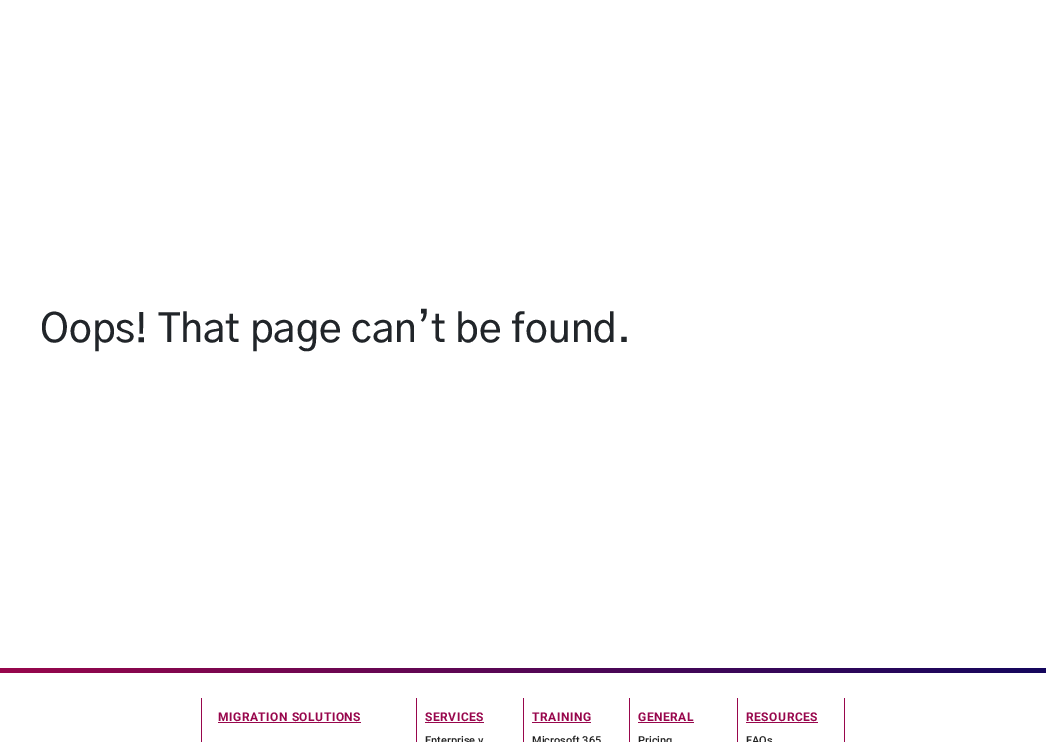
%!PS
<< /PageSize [1046 742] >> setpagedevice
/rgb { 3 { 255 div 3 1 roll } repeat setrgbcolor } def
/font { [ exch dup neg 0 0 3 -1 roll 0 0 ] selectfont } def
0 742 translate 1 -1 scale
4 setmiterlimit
255 255 255 rgb
0 0 1046 742 rectfill
gsave 0 668 moveto 1046 668 lineto 1046 673 lineto 0 673 lineto closepath clip newpath
<< /ShadingType 2 /ColorSpace /DeviceRGB /Coords [0 671 1046 671] /Extend [true true] /Function << /FunctionType 2 /Domain [0 1] /C0 [0.596 0.024 0.298] /C1 [0.078 0.024 0.365] /N 1 >> >> shfill grestore
[
  [201 698 1 44 152 6 76]
  [218 722 143 1 152 6 76]
  [844 698 1 44 152 6 76]
  [416 698 1 44 152 6 76]
  [523 698 1 44 152 6 76]
  [425 722 59 1 152 6 76]
  [629 698 1 44 152 6 76]
  [532 722 59 1 152 6 76]
  [638 722 56 1 152 6 76]
  [737 698 1 44 152 6 76]
  [746 722 72 1 152 6 76]
] { aload pop rgb rectfill } forall
/GothicA1-Medium 40 font
33 37 41 rgb
40 342 moveto (Oops! That page can’t be found.) show
/Roboto-Bold 12 font
152 6 76 rgb
218 721 moveto 0.5 0 (MIGRATION SOLUTIONS) ashow
425 721 moveto 0.5 0 (SERVICES) ashow
/Roboto-Medium 11 font
33 33 33 rgb
425 744 moveto (Enterprise v) show
/Roboto-Bold 12 font
152 6 76 rgb
532 721 moveto 0.5 0 (TRAINING) ashow
/Roboto-Medium 11 font
33 33 33 rgb
532 744 moveto (Microsoft 365) show
/Roboto-Bold 12 font
152 6 76 rgb
638 721 moveto 0.5 0 (GENERAL) ashow
/Roboto-Medium 11 font
33 33 33 rgb
638 744 moveto (Pricing) show
/Roboto-Bold 12 font
152 6 76 rgb
746 721 moveto 0.5 0 (RESOURCES) ashow
/Roboto-Medium 11 font
33 33 33 rgb
746 744 moveto (FAQs) show
showpage
